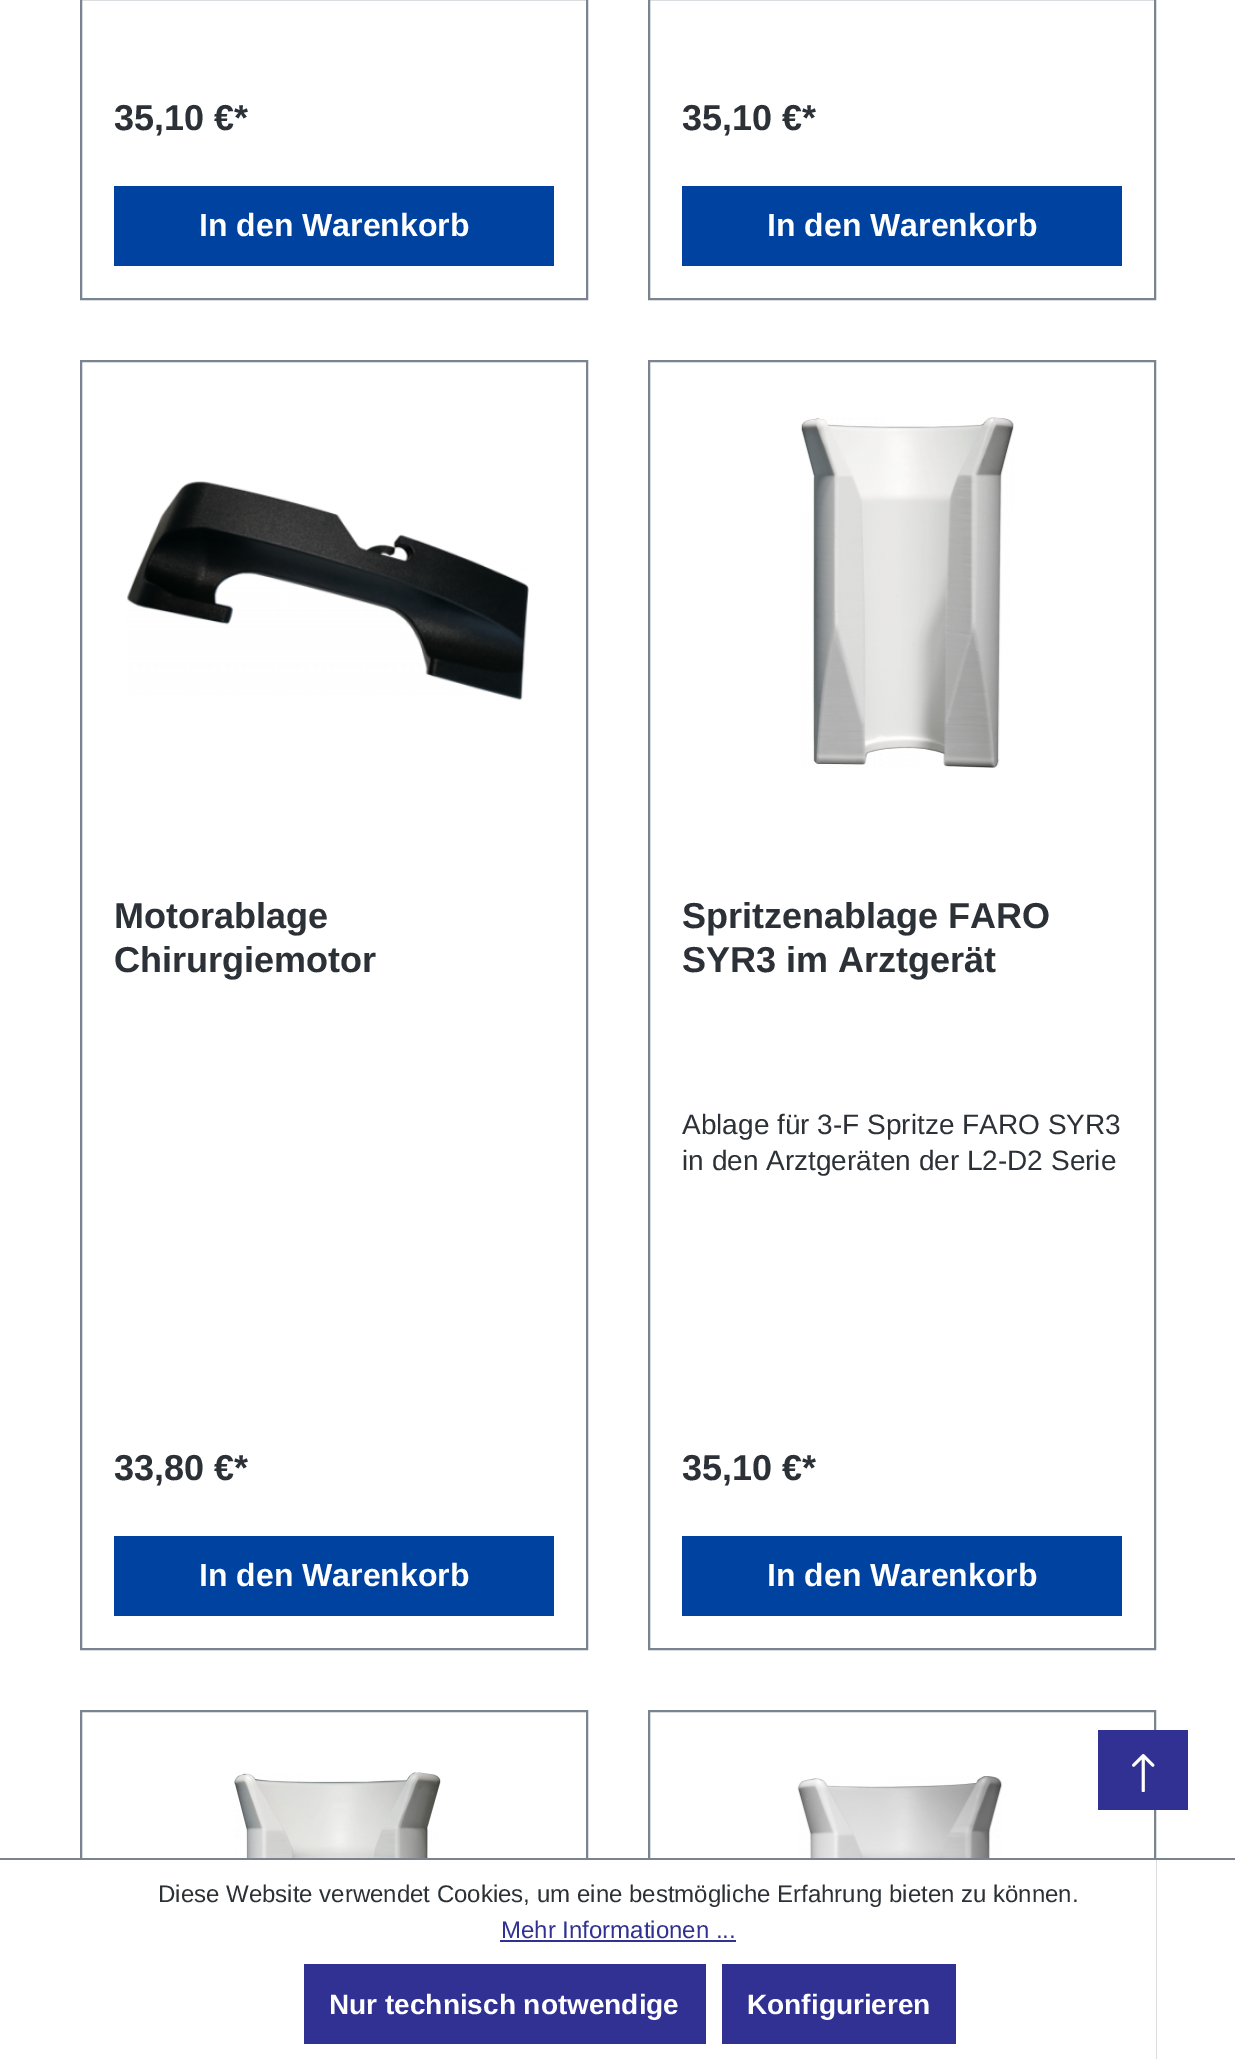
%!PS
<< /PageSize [1235 2059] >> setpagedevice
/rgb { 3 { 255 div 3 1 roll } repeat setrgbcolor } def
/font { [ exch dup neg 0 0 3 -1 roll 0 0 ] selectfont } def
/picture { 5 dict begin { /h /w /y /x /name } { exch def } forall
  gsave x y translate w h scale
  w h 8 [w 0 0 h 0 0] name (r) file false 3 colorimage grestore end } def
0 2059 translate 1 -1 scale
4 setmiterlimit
255 255 255 rgb
0 0 1235 2059 rectfill
121 132 144 rgb
2 setlinewidth
81 -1 506 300 rectstroke
0 66 160 rgb
114 186 440 80 rectfill
121 132 144 rgb
649 -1 506 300 rectstroke
0 66 160 rgb
682 186 440 80 rectfill
121 132 144 rgb
81 361 506 1288 rectstroke
(img/1.rgb) 127 481 402 220 picture
0 66 160 rgb
114 1536 440 80 rectfill
121 132 144 rgb
649 361 506 1288 rectstroke
(img/2.rgb) 800 417 214 351 picture
0 66 160 rgb
682 1536 440 80 rectfill
121 132 144 rgb
81 1711 506 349 rectstroke
(img/3.rgb) 234 1772 207 86 picture
649 1711 506 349 rectstroke
(img/4.rgb) 797 1776 206 82 picture
48 49 146 rgb
1098 1730 90 80 rectfill
(img/5.rgb) 1132 1754 23 38 picture
[
  [80 1860 1076 199 255 255 255]
  [0 1858 1235 2 121 132 144]
  [500 1940 236 2 48 49 146]
  [304 1964 402 80 48 49 146]
  [722 1964 234 80 48 49 146]
] { aload pop rgb rectfill } forall
/LiberationSans-Bold 36 font
43 49 54 rgb
114 130 moveto (35,10 €*) show
/LiberationSans-Bold 32 font
255 255 255 rgb
199 236 moveto (In den Warenkorb) show
/LiberationSans-Bold 36 font
43 49 54 rgb
682 130 moveto (35,10 €*) show
/LiberationSans-Bold 32 font
255 255 255 rgb
767 236 moveto (In den Warenkorb) show
/LiberationSans-Bold 36 font
43 49 54 rgb
[
  [(Motorablage) 114 928]
  [(Chirurgiemotor) 114 972]
  [(33,80 €*) 114 1480]
] { aload pop moveto show } forall
/LiberationSans-Bold 32 font
255 255 255 rgb
199 1586 moveto (In den Warenkorb) show
/LiberationSans-Bold 36 font
43 49 54 rgb
682 928 moveto (Spritzenablage FARO) show
682 972 moveto (SYR3 im Arztgerät) show
/LiberationSans-Regular 28 font
682 1134 moveto (Ablage für 3-F Spritze FARO SYR3) show
682 1170 moveto (in den Arztgeräten der L2-D2 Serie) show
/LiberationSans-Bold 36 font
682 1480 moveto (35,10 €*) show
/LiberationSans-Bold 32 font
255 255 255 rgb
767 1586 moveto (In den Warenkorb) show
/LiberationSans-Regular 24 font
43 49 54 rgb
158 1902 moveto (Diese Website verwendet Cookies, um eine bestmögliche Erfahrung bieten zu können.) show
48 49 146 rgb
501 1938 moveto (Mehr Informationen ...) show
/LiberationSans-Bold 28 font
255 255 255 rgb
329 2014 moveto (Nur technisch notwendige) show
747 2014 moveto (Konfigurieren) show
showpage
